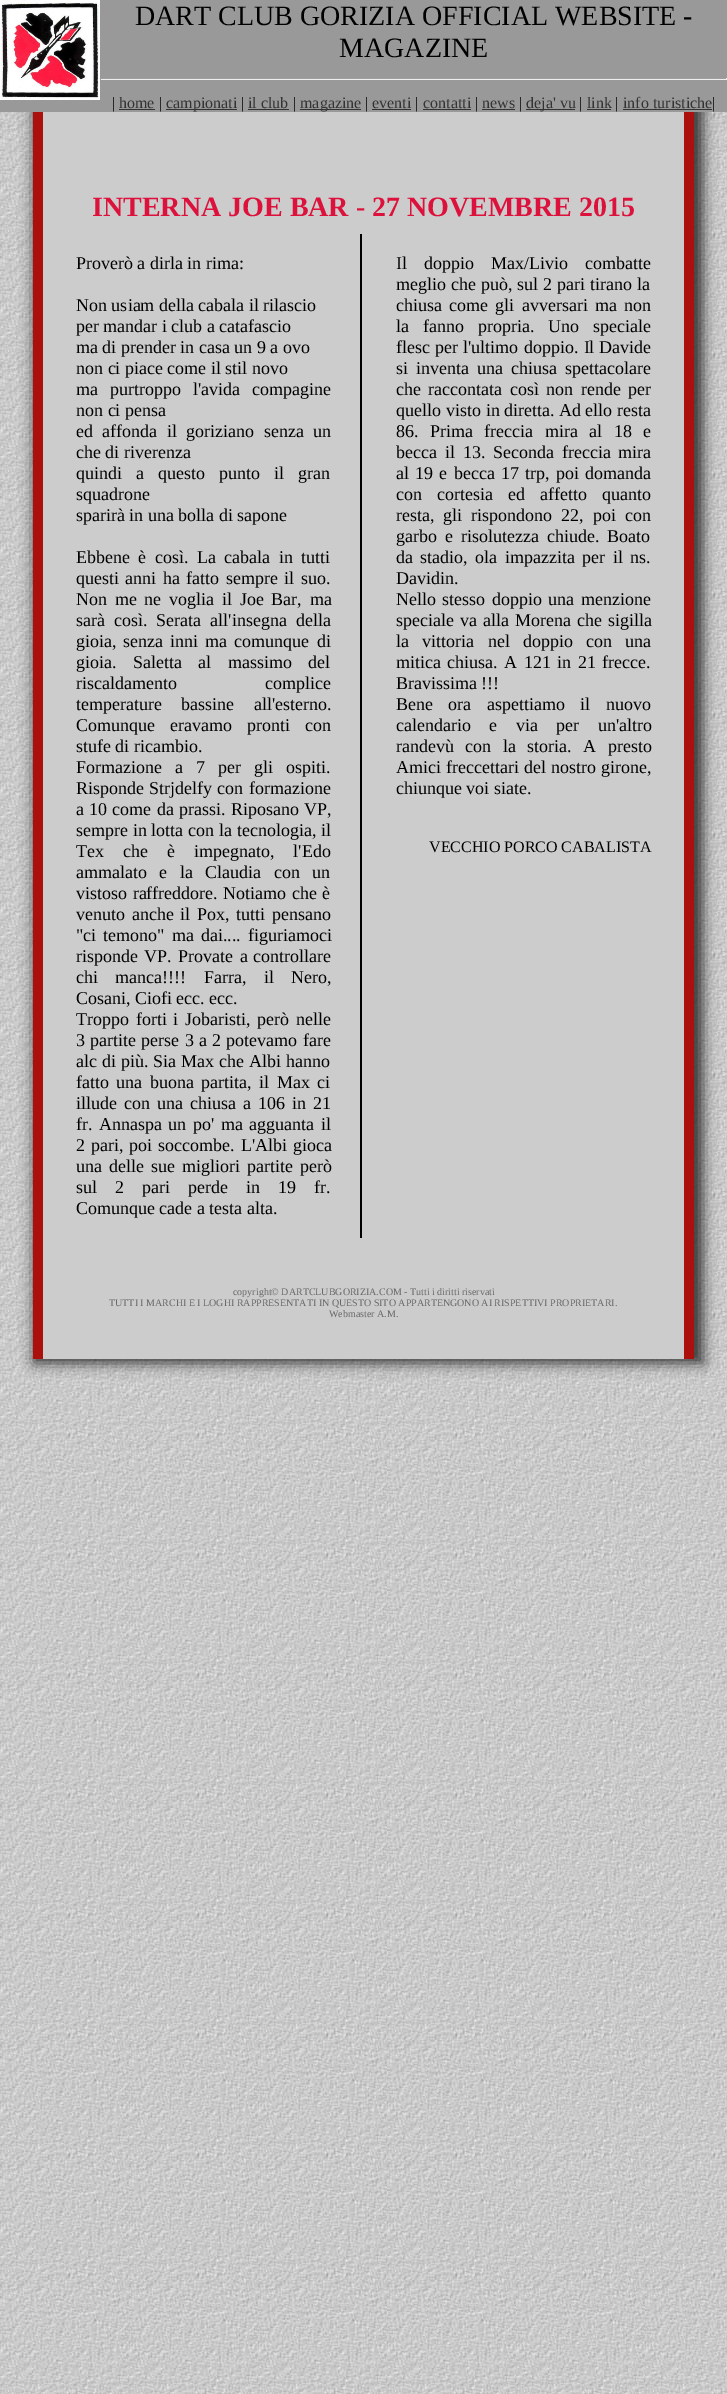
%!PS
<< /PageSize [727 2394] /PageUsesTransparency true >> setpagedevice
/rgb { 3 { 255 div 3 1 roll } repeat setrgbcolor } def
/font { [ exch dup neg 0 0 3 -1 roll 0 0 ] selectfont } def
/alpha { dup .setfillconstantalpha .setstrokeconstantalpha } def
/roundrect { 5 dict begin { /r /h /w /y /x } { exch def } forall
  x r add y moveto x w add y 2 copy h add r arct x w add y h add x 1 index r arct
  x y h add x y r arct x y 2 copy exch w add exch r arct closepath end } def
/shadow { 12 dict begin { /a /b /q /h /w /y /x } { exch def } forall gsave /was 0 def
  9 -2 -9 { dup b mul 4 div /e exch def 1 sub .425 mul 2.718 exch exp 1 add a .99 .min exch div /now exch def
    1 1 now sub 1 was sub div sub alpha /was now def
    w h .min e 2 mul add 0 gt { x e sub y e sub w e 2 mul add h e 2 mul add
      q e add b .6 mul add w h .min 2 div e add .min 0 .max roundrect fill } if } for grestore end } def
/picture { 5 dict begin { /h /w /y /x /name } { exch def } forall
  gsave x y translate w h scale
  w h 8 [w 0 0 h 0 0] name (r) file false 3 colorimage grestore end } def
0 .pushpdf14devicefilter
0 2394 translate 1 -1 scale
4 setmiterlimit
255 255 255 rgb
0 0 727 2394 rectfill
(img/1.rgb) 0 112 727 2282 picture
51 51 51 rgb
34 -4 669 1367 0 7 1 shadow
153 153 153 rgb
0 0 727 112 rectfill
(img/2.rgb) 0 0 100 100 picture
[
  [100 78 627 1 159 159 159]
  [726 78 1 2 238 238 238]
  [100 79 627 1 238 238 238]
  [100 78 1 2 159 159 159]
  [119 109 36 1 51 51 51]
  [166 109 71 1 51 51 51]
  [248 109 41 1 51 51 51]
  [300 109 61 1 51 51 51]
  [372 109 39 1 51 51 51]
  [423 109 48 1 51 51 51]
  [482 109 33 1 51 51 51]
  [526 109 49 1 51 51 51]
  [587 109 24 1 51 51 51]
  [623 109 89 1 51 51 51]
  [43 112 641 1247 204 204 204]
  [684 112 10 1247 171 16 12]
  [33 112 10 1247 171 16 12]
  [360 234 2 1004 0 0 0]
] { aload pop rgb rectfill } forall
/LiberationSerif-Regular 28 font
135 25 moveto (DART CLUB GORIZIA OFFICIAL WEBSITE -) show
339 57 moveto (MAGAZINE) show
/LiberationSerif-Regular 16 font
112 108 moveto (|) show
51 51 51 rgb
119 108 moveto (home) show
0 0 0 rgb
159 108 moveto (|) show
51 51 51 rgb
166 108 moveto (campionati) show
0 0 0 rgb
241 108 moveto (|) show
51 51 51 rgb
248 108 moveto (il club) show
0 0 0 rgb
293 108 moveto (|) show
51 51 51 rgb
300 108 moveto (magazine) show
0 0 0 rgb
365 108 moveto (|) show
51 51 51 rgb
372 108 moveto (eventi) show
0 0 0 rgb
415 108 moveto (|) show
51 51 51 rgb
423 108 moveto (contatti) show
0 0 0 rgb
475 108 moveto (|) show
51 51 51 rgb
482 108 moveto (news) show
0 0 0 rgb
519 108 moveto (|) show
51 51 51 rgb
526 108 moveto (deja' vu) show
0 0 0 rgb
579 108 moveto (|) show
51 51 51 rgb
587 108 moveto (link) show
0 0 0 rgb
615 108 moveto (|) show
51 51 51 rgb
623 108 moveto (info turistiche) show
0 0 0 rgb
712 108 moveto (|) show
/LiberationSerif-Bold 28 font
220 18 60 rgb
92 216 moveto (INTERNA JOE BAR - 27 NOVEMBRE 2015) show
/LiberationSerif-Regular 18 font
0 0 0 rgb
[
  [(Proverò a dirla in rima:) 76 269]
  [(Non usiam della cabala il rilascio) 76 311]
  [(per mandar i club a catafascio) 76 332]
  [(ma di prender in casa un 9 a ovo) 76 353]
  [(non ci piace come il stil novo) 76 374]
] { aload pop moveto show } forall
76 395 moveto 7.5 0 32 (ma purtroppo l'avida compagine) widthshow
76 416 moveto (non ci pensa) show
76 437 moveto 5 0 32 (ed affonda il goriziano senza un) widthshow
76 458 moveto (che di riverenza) show
76 479 moveto 9.5 0 32 (quindi a questo punto il gran) widthshow
76 500 moveto (squadrone) show
76 521 moveto (sparirà in una bolla di sapone) show
76 563 moveto 4 0 32 (Ebbene è così. La cabala in tutti) widthshow
76 584 moveto 2 0 32 (questi anni ha fatto) widthshow
226 584 moveto 2 0 32 (sempre il suo.) widthshow
76 605 moveto 3.25 0 32 (Non me ne voglia il Joe Bar, ma) widthshow
76 626 moveto 4.5 0 32 (sarà così. Serata all'insegna della) widthshow
76 647 moveto 2.5 0 32 (gioia, senza inni ma comunque) widthshow
317 647 moveto (di) show
76 668 moveto 12 0 32 (gioia. Saletta al massimo del) widthshow
76 689 moveto 84 0 32 (riscaldamento complice) widthshow
76 710 moveto 15 0 32 (temperature bassine all'esterno.) widthshow
76 731 moveto 10.5 0 32 (Comunque eravamo pronti con) widthshow
76 752 moveto (stufe di ricambio.) show
76 773 moveto 8.5 0 32 (Formazione a 7 per gli ospiti.) widthshow
76 794 moveto (Risponde) show
149 794 moveto 1 0 32 (Strjdelfy con formazione) widthshow
76 815 moveto 0.75 0 32 (a 10 come da prassi. Riposano VP,) widthshow
76 836 moveto 0.25 0 32 (sempre in lotta con la tecnologia, il) widthshow
76 857 moveto 14.5 0 32 (Tex che è impegnato, l'Edo) widthshow
76 878 moveto 8 0 32 (ammalato e la Claudia con un) widthshow
76 899 moveto 1 0 32 (vistoso raffreddore. Notiamo che è) widthshow
76 920 moveto 2.25 0 32 (venuto anche il Pox, tutti pensano) widthshow
76 941 moveto 2.5 0 32 ("ci temono" ma dai.... figuriamoci) widthshow
76 962 moveto 2 0 32 (risponde VP. Provate a) widthshow
253 962 moveto (controllare) show
76 983 moveto 13 0 32 (chi manca!!!! Farra, il Nero,) widthshow
76 1004 moveto (Cosani, Ciofi ecc. ecc.) show
76 1025 moveto 2.25 0 32 (Troppo forti i Jobaristi, però nelle) widthshow
76 1046 moveto 0.75 0 32 (3 partite perse 3 a 2 potevamo fare) widthshow
76 1067 moveto 0.5 0 32 (alc di più. Sia Max che Albi hanno) widthshow
76 1088 moveto 3 0 32 (fatto una) widthshow
150 1088 moveto 3 0 32 (buona partita, il Max ci) widthshow
76 1109 moveto 2.5 0 32 (illude con una chiusa a 106 in 21) widthshow
76 1130 moveto 2 0 32 (fr. Annaspa un po' ma agguanta il) widthshow
76 1151 moveto 1.5 0 32 (2 pari, poi soccombe. L'Albi gioca) widthshow
76 1172 moveto 2.5 0 32 (una delle sue migliori partite però) widthshow
76 1193 moveto 13.5 0 32 (sul 2 pari perde in) widthshow
278 1193 moveto 13.5 0 32 (19 fr.) widthshow
76 1214 moveto (Comunque cade a testa alta.) show
396 269 moveto 12.5 0 32 (Il doppio Max/Livio combatte) widthshow
396 290 moveto 0.5 0 32 (meglio che può, sul 2 pari tirano la) widthshow
396 311 moveto 2.75 0 32 (chiusa come gli avversari ma non) widthshow
396 332 moveto 9.5 0 32 (la fanno propria. Uno speciale) widthshow
396 353 moveto 0.5 0 32 (flesc per l'ultimo) widthshow
524 353 moveto 0.5 0 32 (doppio. Il Davide) widthshow
396 374 moveto 3.5 0 32 (si inventa una chiusa spettacolare) widthshow
396 395 moveto 3 0 32 (che raccontata così non rende per) widthshow
396 416 moveto (quello) show
446 416 moveto (visto in diretta. Ad ello resta) show
396 437 moveto 7 0 32 (86. Prima freccia mira al 18 e) widthshow
396 458 moveto 3.5 0 32 (becca il 13. Seconda freccia) widthshow
618 458 moveto (mira) show
396 479 moveto 1.75 0 32 (al 19 e becca 17 trp, poi domanda) widthshow
396 500 moveto 10.5 0 32 (con cortesia ed affetto quanto) widthshow
396 521 moveto 4.5 0 32 (resta, gli rispondono 22, poi con) widthshow
396 542 moveto 3.5 0 32 (garbo e risolutezza chiude. Boato) widthshow
396 563 moveto 3 0 32 (da stadio, ola impazzita per il ns.) widthshow
396 584 moveto (Davidin.) show
396 605 moveto 2 0 32 (Nello stesso doppio una menzione) widthshow
396 626 moveto 1.5 0 32 (speciale va alla Morena che sigilla) widthshow
396 647 moveto 9 0 32 (la vittoria nel doppio) widthshow
586 647 moveto 9 0 32 (con una) widthshow
396 668 moveto 2 0 32 (mitica chiusa. A 121 in 21 frecce.) widthshow
396 689 moveto (Bravissima !!!) show
396 710 moveto 11 0 32 (Bene ora aspettiamo il nuovo) widthshow
396 731 moveto 14 0 32 (calendario e via per un'altro) widthshow
396 752 moveto 7 0 32 (randevù con la storia. A presto) widthshow
396 773 moveto 0.5 0 32 (Amici freccettari del nostro) widthshow
601 773 moveto (girone,) show
396 794 moveto (chiunque voi siate.) show
/LiberationSerif-Regular 16 font
429 852 moveto (VECCHIO PORCO CABALISTA) show
/LiberationSerif-Regular 10 font
102 102 102 rgb
[
  [(copyright© DARTCLUBGORIZIA.COM - Tutti i diritti riservati) 233 1295]
  [(TUTTI I MARCHI E I LOGHI RAPPRESENTATI IN QUESTO SITO APPARTENGONO AI RISPETTIVI PROPRIETARI.) 109 1306]
  [(Webmaster A.M.) 329 1317]
] { aload pop moveto show } forall
.poppdf14devicefilter showpage
